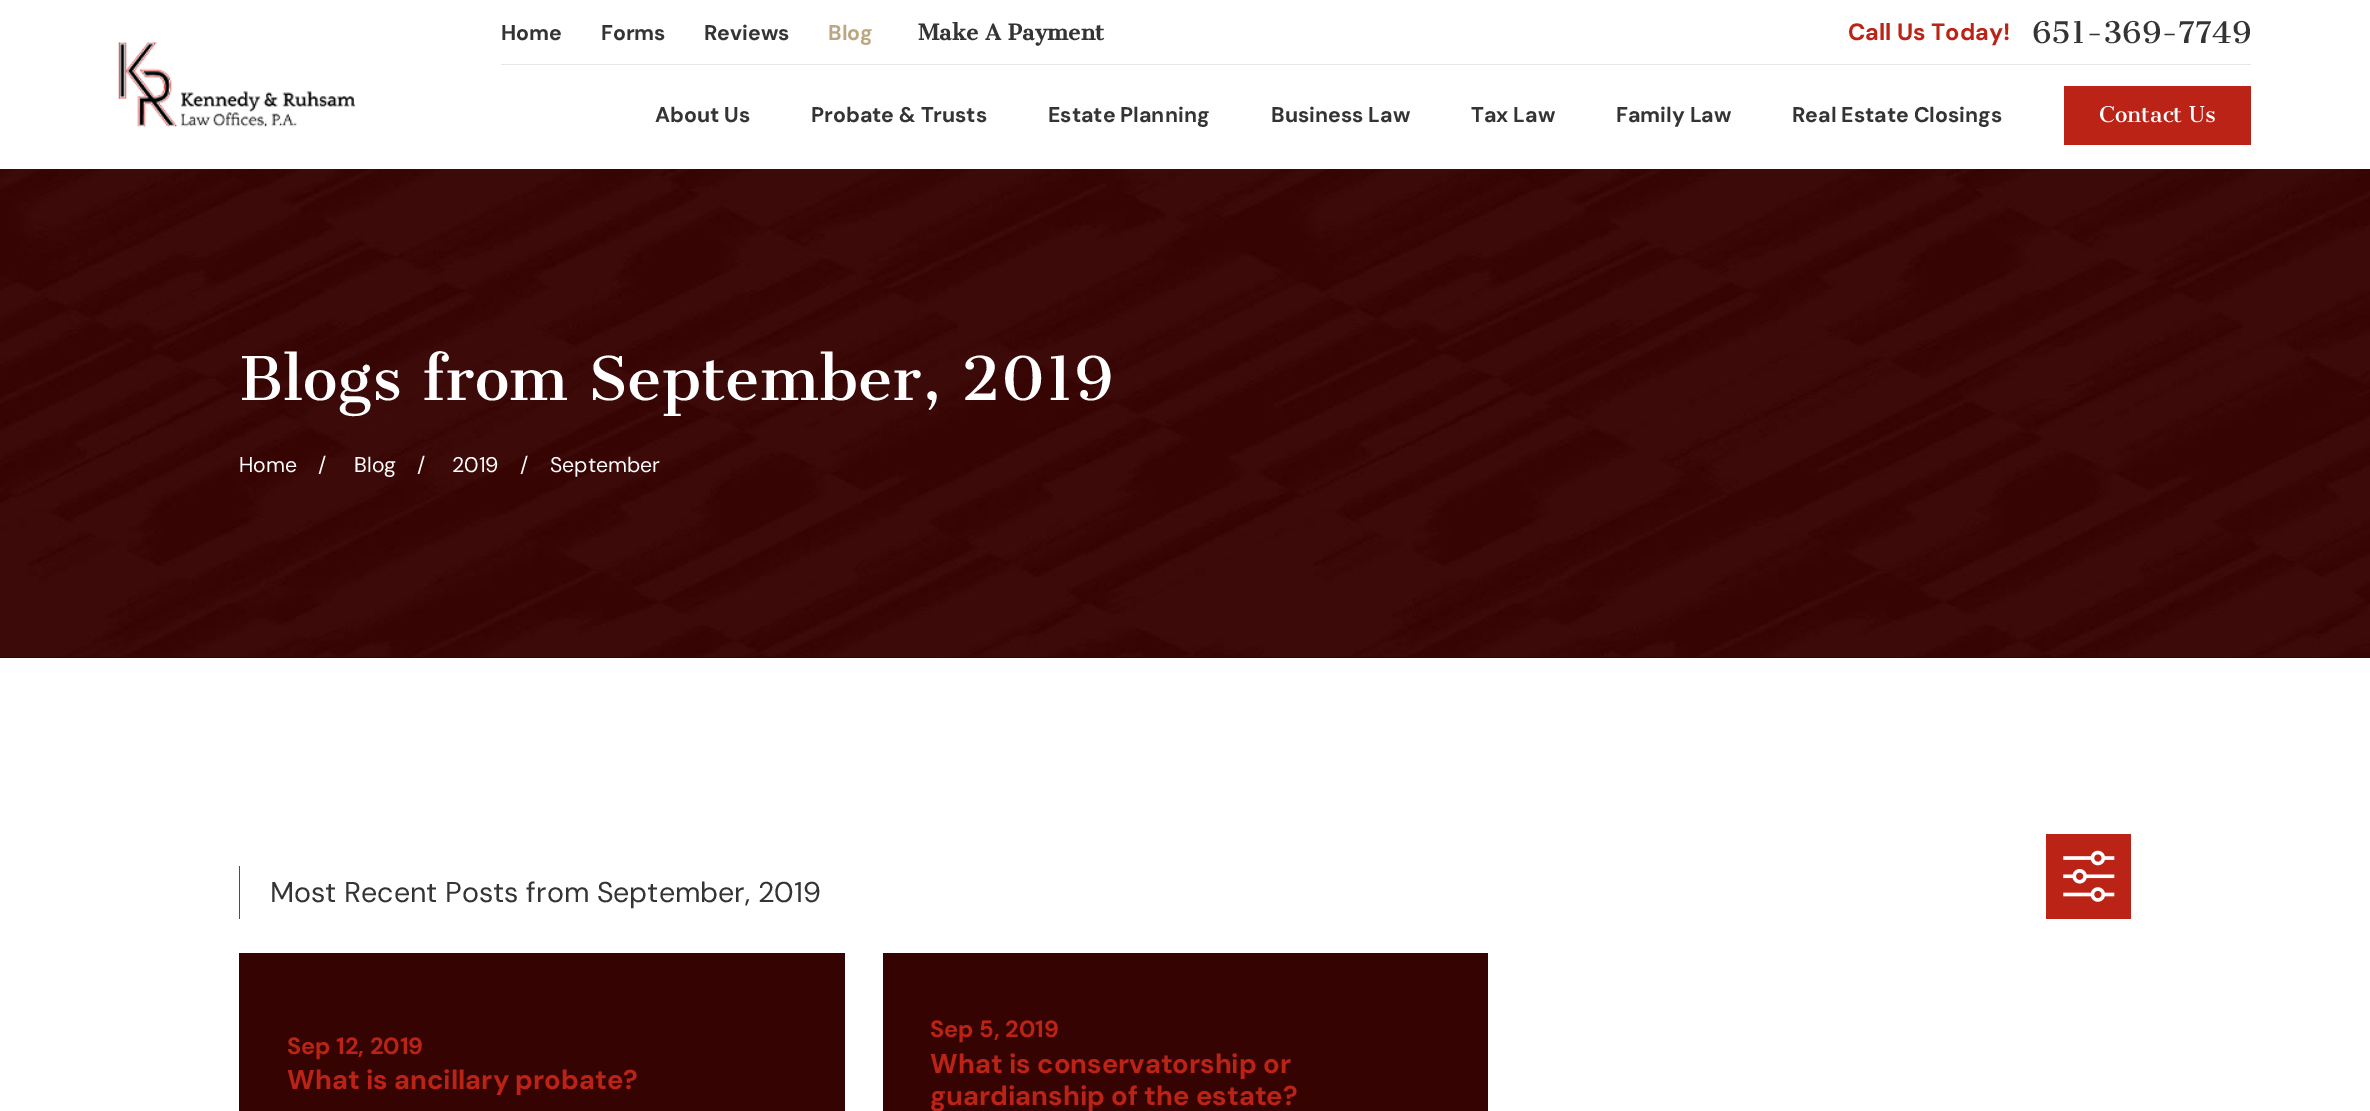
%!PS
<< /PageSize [2370 1111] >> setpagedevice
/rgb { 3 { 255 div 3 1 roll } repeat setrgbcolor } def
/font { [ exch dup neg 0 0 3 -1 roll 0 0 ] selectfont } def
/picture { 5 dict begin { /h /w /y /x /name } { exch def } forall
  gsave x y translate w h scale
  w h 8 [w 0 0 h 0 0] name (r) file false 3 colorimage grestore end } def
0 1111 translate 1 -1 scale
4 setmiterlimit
255 255 255 rgb
0 0 2370 1111 rectfill
(img/1.rgb) 118 42 237 85 picture
[
  [501 64 1750 1 230 230 230]
  [2064 86 187 59 187 35 23]
  [0 657 2370 1 54 3 3]
] { aload pop rgb rectfill } forall
(img/2.rgb) 0 169 2370 488 picture
187 35 23 rgb
239 866 1 53 rectfill
2046 834 85 85 rectfill
(img/3.rgb) 2063 850 52 52 picture
54 3 3 rgb
239 953 606 158 rectfill
883 953 605 158 rectfill
/DMSans-Bold 21.25 font
52 52 52 rgb
[
  [(Home) 501 40]
  [(Forms) 601 40]
  [(Reviews) 704 40]
] { aload pop moveto show } forall
188 167 130 rgb
828 40 moveto (Blog) show
/CantataOne-Bold 21.25 font
52 52 52 rgb
918 40 moveto (Make A Payment) show
/DMSans-Bold 23.5 font
187 35 23 rgb
1848 40 moveto (Call Us Today!) show
/CantataOne-Regular 29.25 font
52 52 52 rgb
2032 43 moveto (651-369-7749) show
/DMSans-Bold 21.25 font
[
  [(About Us) 655 122]
  [(Probate & Trusts) 811 122]
  [(Estate Planning) 1048 122]
  [(Business Law) 1271 122]
  [(Tax Law) 1471 122]
  [(Family Law) 1616 122]
  [(Real Estate Closings) 1792 122]
] { aload pop moveto show } forall
/CantataOne-Regular 21.25 font
255 255 255 rgb
2099 122 moveto (Contact Us) show
/CantataOne-Regular 59 font
239 400 moveto (Blogs from September, 2019) show
/DMSans-Regular 21.25 font
[
  [(Home) 239 472]
  [(/) 318 472]
  [(Blog) 354 472]
  [(/) 417 472]
  [(2019) 452 472]
  [(/) 520 472]
  [(September) 550 472]
] { aload pop moveto show } forall
/DMSans-Regular 28.6 font
52 52 52 rgb
270 902 moveto (Most Recent Posts from September, 2019) show
/DMSans-Bold 23.5 font
187 35 23 rgb
287 1054 moveto (Sep 12, 2019) show
/DMSans-Bold 27.25 font
287 1089 moveto (What is ancillary probate?) show
/DMSans-Bold 23.5 font
930 1037 moveto (Sep 5, 2019) show
/DMSans-Bold 27.25 font
930 1073 moveto (What is conservatorship or) show
930 1105 moveto (guardianship of the estate?) show
showpage
